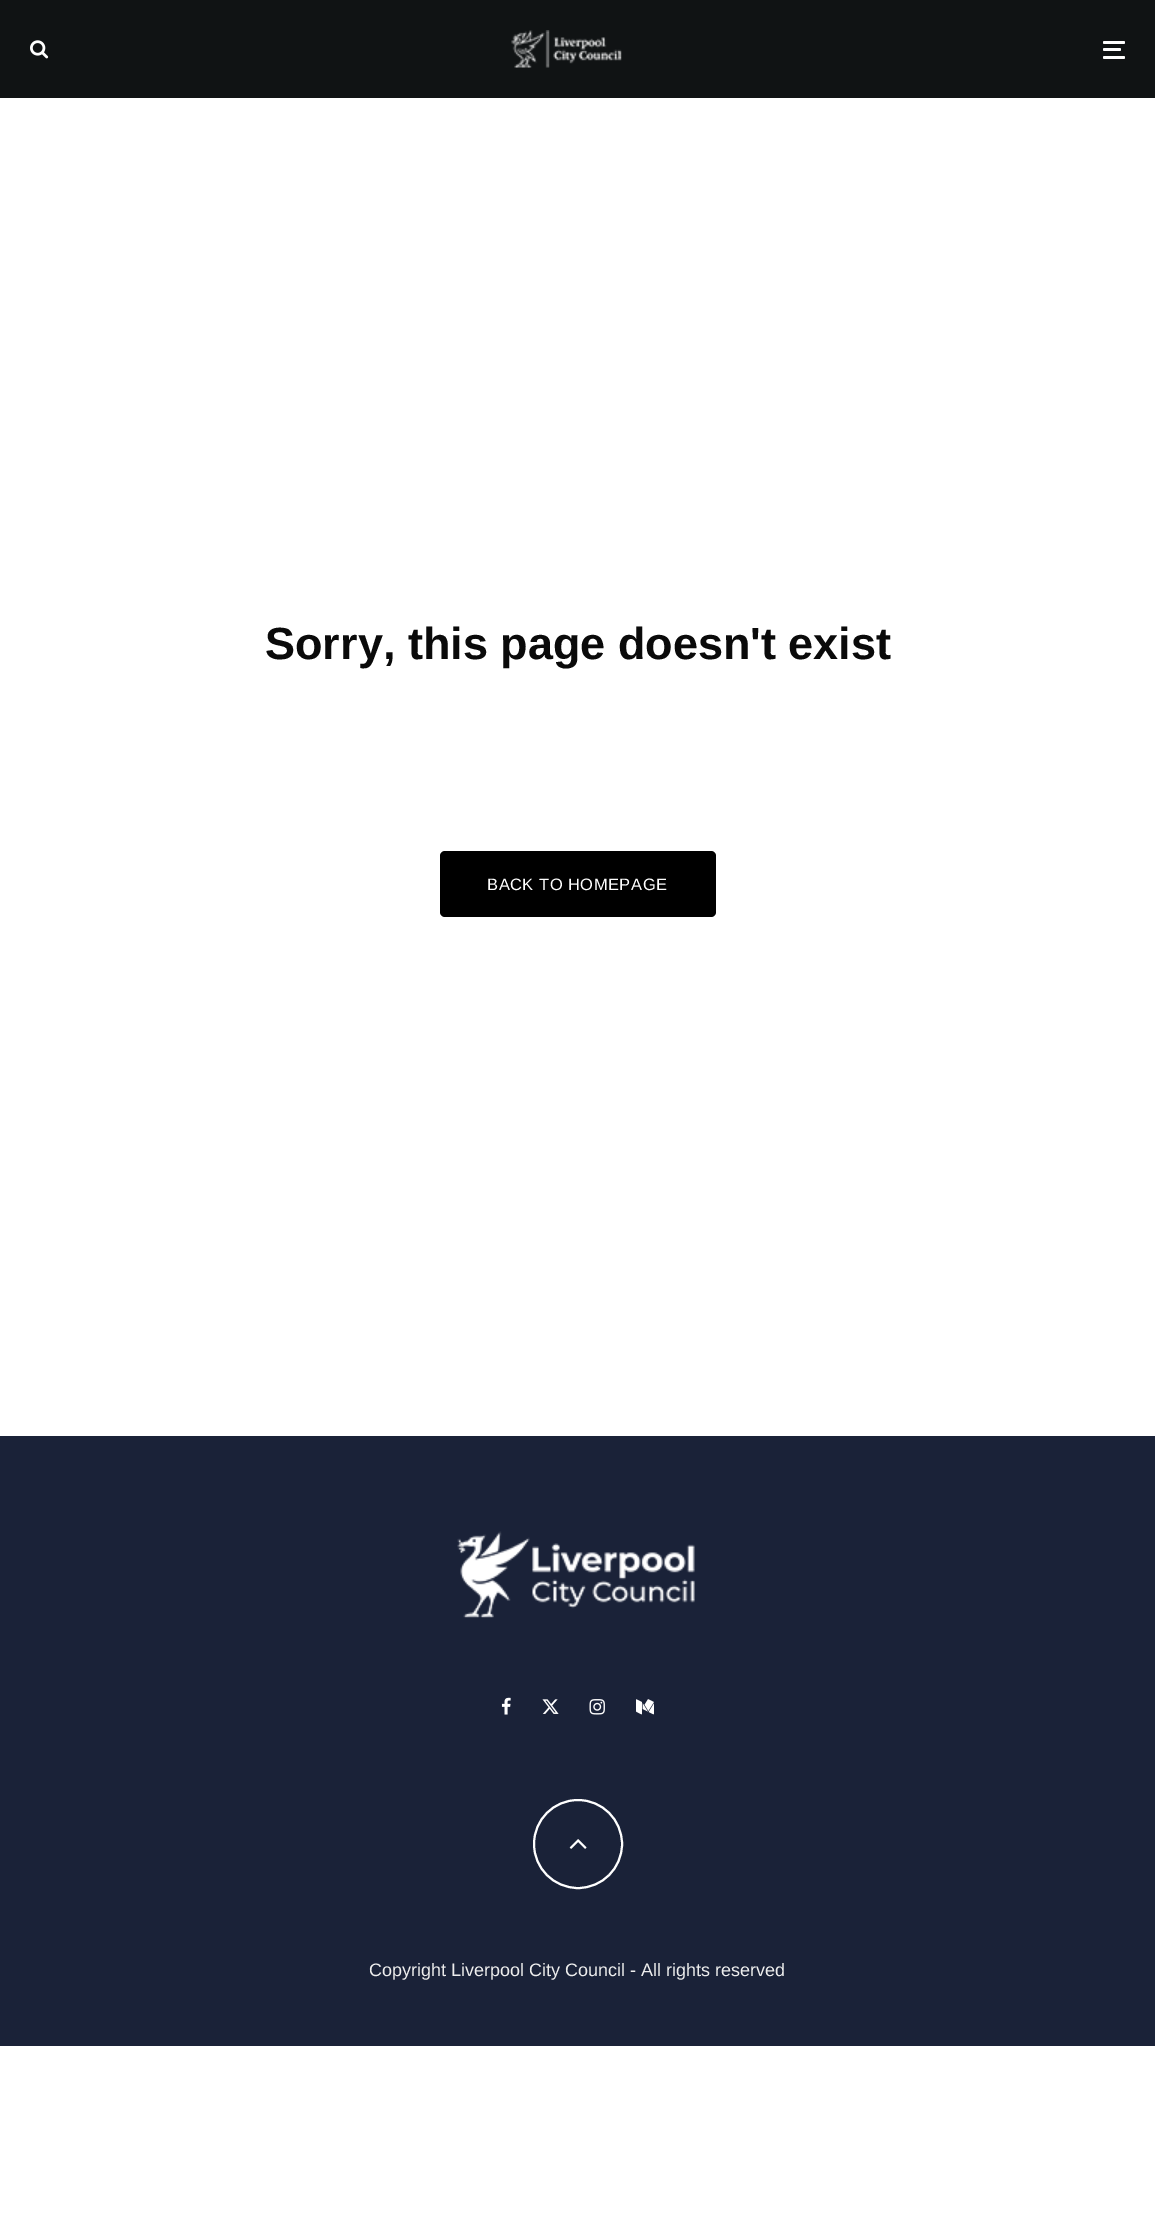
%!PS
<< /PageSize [1155 2230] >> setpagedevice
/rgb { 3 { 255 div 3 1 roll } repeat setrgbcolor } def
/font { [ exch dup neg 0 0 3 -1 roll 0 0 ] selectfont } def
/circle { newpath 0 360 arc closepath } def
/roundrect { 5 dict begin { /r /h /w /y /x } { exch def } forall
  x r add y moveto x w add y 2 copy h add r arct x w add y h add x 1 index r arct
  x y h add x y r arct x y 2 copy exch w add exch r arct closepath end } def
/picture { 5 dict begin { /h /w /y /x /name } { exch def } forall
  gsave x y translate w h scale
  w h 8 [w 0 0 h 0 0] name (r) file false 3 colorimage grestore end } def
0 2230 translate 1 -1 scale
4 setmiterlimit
255 255 255 rgb
0 0 1155 2230 rectfill
16 19 20 rgb
0 0 1155 98 rectfill
(img/1.rgb) 30 40 19 19 picture
(img/2.rgb) 511 30 111 38 picture
255 255 255 rgb
1103 48 18 3 1.5 roundrect fill
1103 41 22 3 1.5 roundrect fill
1103 56 22 3 1.5 roundrect fill
0 0 0 rgb
440 851 276 66 5 roundrect fill
26 34 56 rgb
0 1436 1155 610 rectfill
(img/3.rgb) 457 1531 238 87 picture
(img/4.rgb) 501 1697 10 18 picture
(img/5.rgb) 542 1699 17 15 picture
(img/6.rgb) 589 1699 16 16 picture
(img/7.rgb) 636 1699 18 16 picture
255 255 255 rgb
2 setlinewidth
578 1844 44 circle stroke
(img/8.rgb) 569 1839 18 10 picture
/LiberationSans-Bold 45 font
10 10 10 rgb
265 659 moveto (Sorry, this page doesn't exist) show
/LiberationSans-Regular 16.5 font
255 255 255 rgb
487 890 moveto 0.5 0 (BACK TO HOMEPAGE) ashow
/LiberationSans-Regular 18 font
237 237 237 rgb
369 1976 moveto (Copyright Liverpool City Council - All rights reserved) show
showpage
